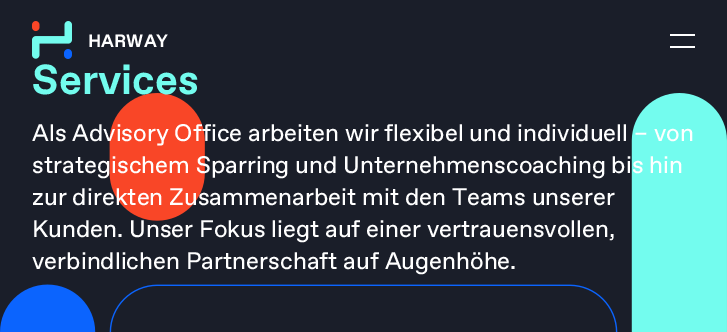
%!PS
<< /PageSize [727 332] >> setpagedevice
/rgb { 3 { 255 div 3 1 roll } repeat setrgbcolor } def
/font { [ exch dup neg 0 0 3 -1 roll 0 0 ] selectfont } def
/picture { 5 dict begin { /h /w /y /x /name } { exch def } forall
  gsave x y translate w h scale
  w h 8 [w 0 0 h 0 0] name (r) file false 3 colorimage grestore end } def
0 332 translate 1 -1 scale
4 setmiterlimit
26 30 41 rgb
0 0 727 332 rectfill
(img/1.rgb) 32 21 40 38 picture
255 255 255 rgb
670 34 25 2 rectfill
670 46 25 2 rectfill
(img/2.rgb) 0 93 727 239 picture
/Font-Bold 18 font
88 47 moveto (HARWAY) show
/Font-Bold 42 font
115 252 238 rgb
32 94 moveto (Services) show
/Font-Regular 24 font
255 255 255 rgb
[
  [(Als Advisory Office arbeiten wir flexibel und individuell – von) 32 141]
  [(strategischem Sparring und Unternehmenscoaching bis hin) 32 173]
  [(zur direkten Zusammenarbeit mit den Teams unserer) 32 205]
  [(Kunden. Unser Fokus liegt auf einer vertrauensvollen,) 32 237]
  [(verbindlichen Partnerschaft auf Augenhöhe.) 32 269]
] { aload pop moveto show } forall
showpage
